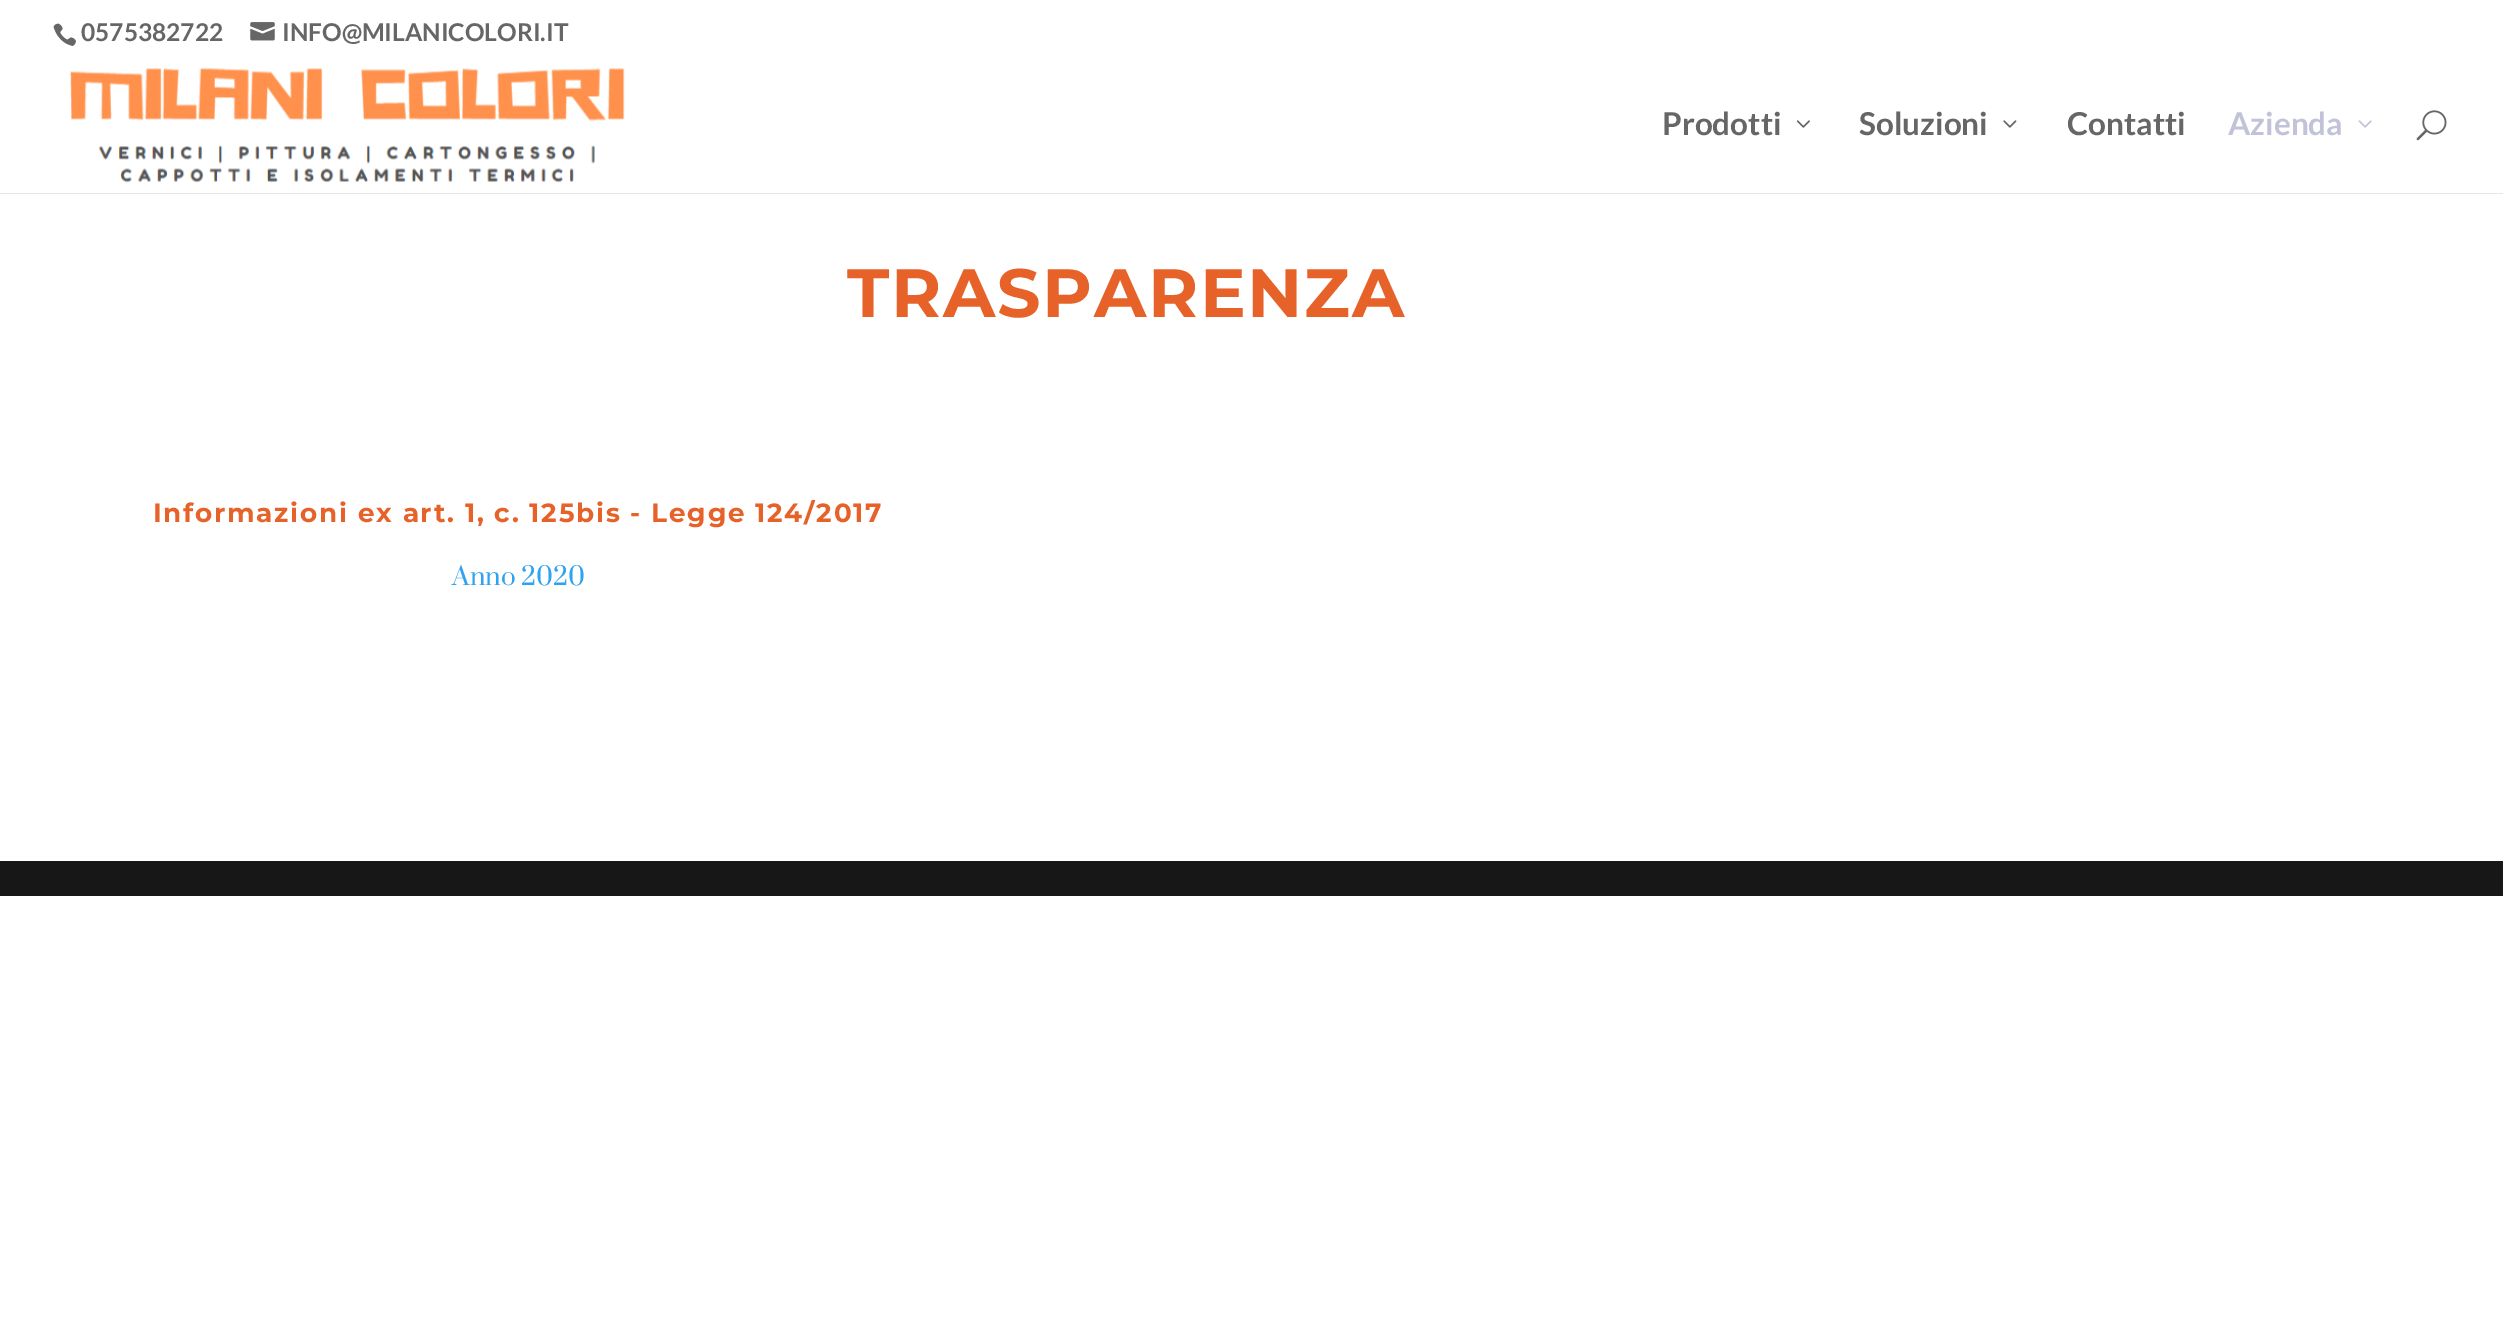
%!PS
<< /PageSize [2503 1324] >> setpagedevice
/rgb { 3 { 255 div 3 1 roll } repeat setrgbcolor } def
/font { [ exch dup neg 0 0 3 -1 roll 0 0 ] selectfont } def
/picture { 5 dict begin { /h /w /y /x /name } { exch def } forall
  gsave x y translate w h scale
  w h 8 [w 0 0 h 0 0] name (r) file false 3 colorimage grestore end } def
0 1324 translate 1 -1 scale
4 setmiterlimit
255 255 255 rgb
0 0 2503 1324 rectfill
(img/1.rgb) 53 23 23 23 picture
(img/2.rgb) 250 22 25 19 picture
230 230 230 rgb
0 193 2503 1 rectfill
(img/3.rgb) 70 68 555 115 picture
(img/4.rgb) 1796 120 14 8 picture
(img/5.rgb) 2003 120 14 8 picture
(img/6.rgb) 2358 120 14 8 picture
(img/7.rgb) 2416 110 31 31 picture
23 23 23 rgb
0 861 2503 35 rectfill
/Lato-Bold 24.5 font
102 102 102 rgb
81 41 moveto (0575382722) show
282 41 moveto (INFO@MILANICOLORI.IT) show
/Lato-Bold 31.5 font
[
  [(Prodotti) 1662 135]
  [(Soluzioni) 1859 135]
  [(Contatti) 2067 135]
] { aload pop moveto show } forall
194 194 217 rgb
2228 135 moveto (Azienda) show
/Montserrat-Thin 68.25 font
230 98 41 rgb
847 317 moveto 1.75 0 (TRASPARENZA) ashow
/Montserrat-Thin 26.25 font
153 522 moveto 1.75 0 (Informazioni ex art. 1, c. 125bis - Legge 124/2017) ashow
/Prata-Regular 24.5 font
46 163 242 rgb
452 585 moveto (Anno 2020) show
showpage
